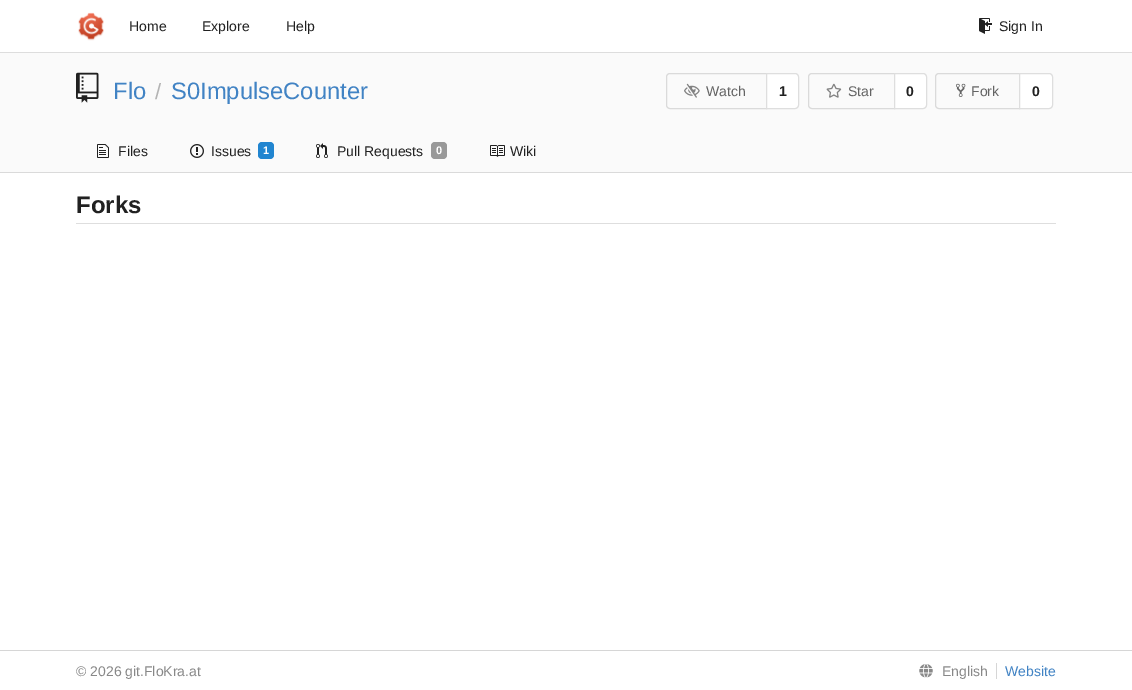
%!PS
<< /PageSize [1132 690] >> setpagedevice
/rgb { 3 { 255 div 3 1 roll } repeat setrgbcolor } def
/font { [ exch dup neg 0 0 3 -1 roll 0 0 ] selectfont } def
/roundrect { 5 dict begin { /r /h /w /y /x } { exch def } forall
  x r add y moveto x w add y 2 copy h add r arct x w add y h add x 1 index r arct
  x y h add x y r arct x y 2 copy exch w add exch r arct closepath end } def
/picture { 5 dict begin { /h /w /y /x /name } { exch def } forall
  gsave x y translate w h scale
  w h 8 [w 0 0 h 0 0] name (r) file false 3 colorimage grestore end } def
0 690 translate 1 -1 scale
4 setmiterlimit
255 255 255 rgb
0 0 1132 690 rectfill
221 221 221 rgb
0 52 1132 1 rectfill
(img/1.rgb) 78 12 26 29 picture
(img/2.rgb) 979 18 13 16 picture
250 250 250 rgb
0 53 1132 119 rectfill
(img/3.rgb) 76 72 23 31 picture
218 218 218 rgb
670 73.5 moveto 766.5 73.5 lineto 766.5 108.5 lineto 670 108.5 lineto 668 108.5 666.5 107 666.5 105 curveto 666.5 77 lineto 666.5 75 668 73.5 670 73.5 curveto closepath stroke
(img/4.rgb) 684 83 16 15 picture
255 255 255 rgb
766.5 73.5 moveto 795 73.5 lineto 797 73.5 798.5 75 798.5 77 curveto 798.5 105 lineto 798.5 107 797 108.5 795 108.5 curveto 766.5 108.5 lineto closepath gsave fill grestore
222 222 222 rgb
stroke
218 218 218 rgb
812 73.5 moveto 894.5 73.5 lineto 894.5 108.5 lineto 812 108.5 lineto 810 108.5 808.5 107 808.5 105 curveto 808.5 77 lineto 808.5 75 810 73.5 812 73.5 curveto closepath stroke
(img/5.rgb) 826 83 16 15 picture
255 255 255 rgb
894.5 73.5 moveto 923 73.5 lineto 925 73.5 926.5 75 926.5 77 curveto 926.5 105 lineto 926.5 107 925 108.5 923 108.5 curveto 894.5 108.5 lineto closepath gsave fill grestore
222 222 222 rgb
stroke
218 218 218 rgb
939 73.5 moveto 1019.5 73.5 lineto 1019.5 108.5 lineto 939 108.5 lineto 937 108.5 935.5 107 935.5 105 curveto 935.5 77 lineto 935.5 75 937 73.5 939 73.5 curveto closepath stroke
(img/6.rgb) 956 83 10 14 picture
255 255 255 rgb
1019.5 73.5 moveto 1049 73.5 lineto 1051 73.5 1052.5 75 1052.5 77 curveto 1052.5 105 lineto 1052.5 107 1051 108.5 1049 108.5 curveto 1019.5 108.5 lineto closepath gsave fill grestore
222 222 222 rgb
stroke
(img/7.rgb) 97 144 12 14 picture
(img/8.rgb) 190 144 14 14 picture
33 133 208 rgb
258 142 16 17 4 roundrect fill
(img/9.rgb) 316 143 12 15 picture
153 153 153 rgb
431 142 16 17 4 roundrect fill
(img/10.rgb) 490 145 15 12 picture
[
  [0 172 1132 1 218 218 218]
  [76 223 980 1 222 222 222]
  [0 650 1132 1 214 214 214]
] { aload pop rgb rectfill } forall
(img/11.rgb) 919 664 14 14 picture
996 663 1 16 rectfill
/LiberationSans-Regular 14 font
33 33 33 rgb
[
  [(Home) 129 31]
  [(Explore) 202 31]
  [(Help) 286 31]
  [(Sign In) 999 31]
] { aload pop moveto show } forall
/LiberationSans-Regular 23.75 font
65 131 196 rgb
113 99 moveto (Flo) show
/LiberationSans-Regular 22 font
180 180 180 rgb
155 99 moveto (/) show
/LiberationSans-Regular 23.75 font
65 131 196 rgb
171 99 moveto (S0ImpulseCounter) show
/LiberationSans-Regular 14 font
100 100 100 rgb
706 96 moveto (Watch) show
/LiberationSans-Bold 14 font
33 33 33 rgb
779 96 moveto (1) show
/LiberationSans-Regular 14 font
100 100 100 rgb
848 96 moveto (Star) show
/LiberationSans-Bold 14 font
33 33 33 rgb
906 96 moveto (0) show
/LiberationSans-Regular 14 font
100 100 100 rgb
971 96 moveto (Fork) show
/LiberationSans-Bold 14 font
33 33 33 rgb
1032 96 moveto (0) show
/LiberationSans-Regular 14 font
118 156 moveto (Files) show
211 156 moveto (Issues) show
/LiberationSans-Bold 11 font
255 255 255 rgb
263 154 moveto (1) show
/LiberationSans-Regular 14 font
33 33 33 rgb
337 156 moveto (Pull Requests) show
/LiberationSans-Bold 11 font
255 255 255 rgb
436 154 moveto (0) show
/LiberationSans-Regular 14 font
33 33 33 rgb
510 156 moveto (Wiki) show
/LiberationSans-Bold 24 font
76 213 moveto (Forks) show
/LiberationSans-Regular 14 font
136 136 136 rgb
76 676 moveto (© 2026 git.FloKra.at) show
942 676 moveto (English) show
65 131 196 rgb
1005 676 moveto (Website) show
showpage
